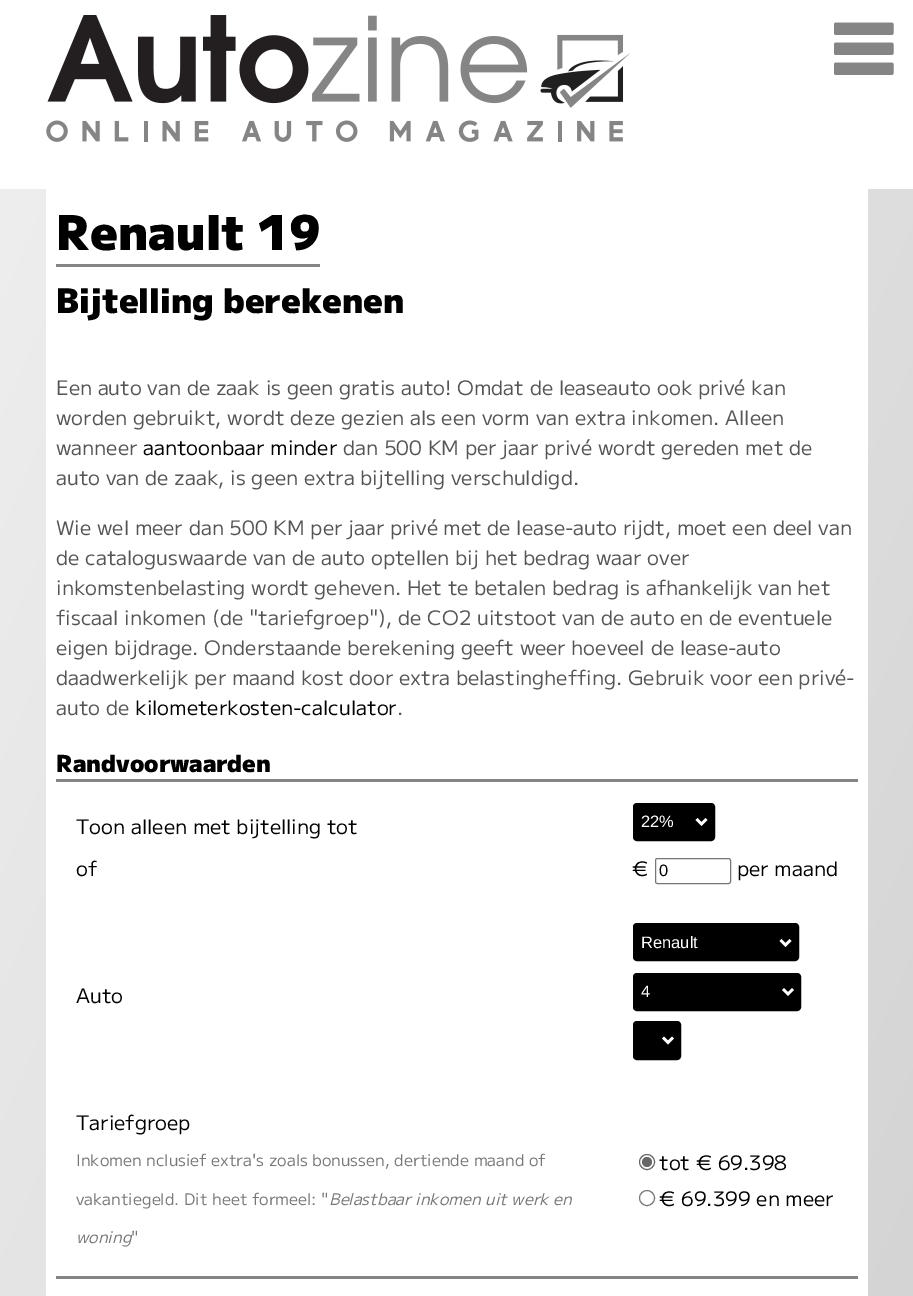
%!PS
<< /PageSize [913 1296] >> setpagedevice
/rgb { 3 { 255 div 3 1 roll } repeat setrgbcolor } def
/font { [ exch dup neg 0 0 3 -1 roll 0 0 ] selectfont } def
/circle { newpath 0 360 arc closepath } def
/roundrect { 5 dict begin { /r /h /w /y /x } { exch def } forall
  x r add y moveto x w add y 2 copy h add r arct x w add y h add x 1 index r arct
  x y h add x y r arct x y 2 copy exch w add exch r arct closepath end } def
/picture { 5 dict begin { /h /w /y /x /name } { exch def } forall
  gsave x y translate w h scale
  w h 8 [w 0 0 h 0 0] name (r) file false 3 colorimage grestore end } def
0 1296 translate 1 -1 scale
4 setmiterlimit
255 255 255 rgb
0 0 913 1296 rectfill
(img/1.rgb) 46 15 584 127 picture
(img/2.rgb) 834 22 60 53 picture
gsave 0 189 moveto 913 189 lineto 913 1296 lineto 0 1296 lineto closepath clip newpath
<< /ShadingType 2 /ColorSpace /DeviceRGB /Coords [-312 910 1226 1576] /Extend [true true] /Function << /FunctionType 2 /Domain [0 1] /C0 [0.933 0.933 0.933] /C1 [0.8 0.8 0.8] /N 1 >> >> shfill grestore
[
  [46 189 822 1107 255 255 255]
  [56 264 264 3 133 133 133]
  [56 779 802 3 133 133 133]
  [56 1276 802 3 133 133 133]
] { aload pop rgb rectfill } forall
0 0 0 rgb
635 805 78 34 2 roundrect gsave fill grestore
4 setlinewidth
stroke
255 255 255 rgb
2.5 setlinewidth
696.5 819 moveto 701.5 824 lineto 706.5 819 lineto stroke
118 118 118 rgb
1 setlinewidth
655.5 858.5 75 25 2 roundrect stroke
0 0 0 rgb
635 925 162 34 2 roundrect gsave fill grestore
4 setlinewidth
stroke
255 255 255 rgb
2.5 setlinewidth
780.5 940 moveto 785.5 945 lineto 790.5 940 lineto stroke
0 0 0 rgb
635 975 164 34 2 roundrect gsave fill grestore
4 setlinewidth
stroke
255 255 255 rgb
2.5 setlinewidth
783 989 moveto 788 994 lineto 793 989 lineto stroke
0 0 0 rgb
635 1023 44 35 2 roundrect gsave fill grestore
4 setlinewidth
stroke
255 255 255 rgb
2.5 setlinewidth
663 1037.5 moveto 668 1042.5 lineto 673 1037.5 lineto stroke
102 102 102 rgb
1 setlinewidth
647 1162 7.5 circle stroke
647 1162 5 circle fill
118 118 118 rgb
647 1198 7.5 circle stroke
/MPLUS1-Black 48 font
0 0 0 rgb
56 250 moveto (Renault 19) show
/MPLUS1-Black 34 font
56 313 moveto (Bijtelling berekenen) show
/MPLUS1-Regular 20 font
85 85 85 rgb
[
  [(Een auto van de zaak is geen gratis auto! Omdat de leaseauto ook privé kan) 56 395]
  [(worden gebruikt, wordt deze gezien als een vorm van extra inkomen. Alleen) 56 425]
  [(wanneer) 56 455]
] { aload pop moveto show } forall
0 0 0 rgb
143 455 moveto (aantoonbaar minder) show
85 85 85 rgb
[
  [(dan 500 KM per jaar privé wordt gereden met de) 343 455]
  [(auto van de zaak, is geen extra bijtelling verschuldigd.) 56 485]
  [(Wie wel meer dan 500 KM per jaar privé met de lease-auto rijdt, moet een deel van) 56 535]
  [(de cataloguswaarde van de auto optellen bij het bedrag waar over) 56 565]
  [(inkomstenbelasting wordt geheven. Het te betalen bedrag is afhankelijk van het) 56 595]
  [(fiscaal inkomen \(de "tariefgroep"\), de CO2 uitstoot van de auto en de eventuele) 56 625]
  [(eigen bijdrage. Onderstaande berekening geeft weer hoeveel de lease-auto) 56 655]
  [(daadwerkelijk per maand kost door extra belastingheffing. Gebruik voor een privé-) 56 685]
  [(auto de) 56 715]
] { aload pop moveto show } forall
0 0 0 rgb
135 715 moveto (kilometerkosten-calculator) show
85 85 85 rgb
397 715 moveto (.) show
/MPLUS1-Black 23.5 font
0 0 0 rgb
56 772 moveto (Randvoorwaarden) show
/MPLUS1-Regular 20 font
76 834 moveto (Toon alleen met bijtelling tot) show
/LiberationSans-Regular 16.5 font
255 255 255 rgb
641 827 moveto (22%) show
/MPLUS1-Regular 20 font
0 0 0 rgb
76 876 moveto (of) show
632 876 moveto (€) show
/LiberationSans-Regular 16.5 font
659 876 moveto (0) show
/MPLUS1-Regular 20 font
737 876 moveto (per maand) show
76 1003 moveto (Auto) show
/LiberationSans-Regular 16.5 font
255 255 255 rgb
641 948 moveto (Renault) show
641 997 moveto (4) show
/MPLUS1-Regular 20 font
0 0 0 rgb
76 1130 moveto (Tariefgroep) show
/MPLUS1-Regular 16 font
119 119 119 rgb
76 1166 moveto (Inkomen nclusief extra's zoals bonussen, dertiende maand of) show
76 1205 moveto (vakantiegeld. Dit heet formeel: ") show
/MPLUS1-Italic 16 font
329 1205 moveto (Belastbaar inkomen uit werk en) show
76 1243 moveto (woning) show
/MPLUS1-Regular 16 font
131 1243 moveto (") show
/MPLUS1-Regular 20 font
0 0 0 rgb
659 1170 moveto (tot € 69.398) show
659 1206 moveto (€ 69.399 en meer) show
showpage
